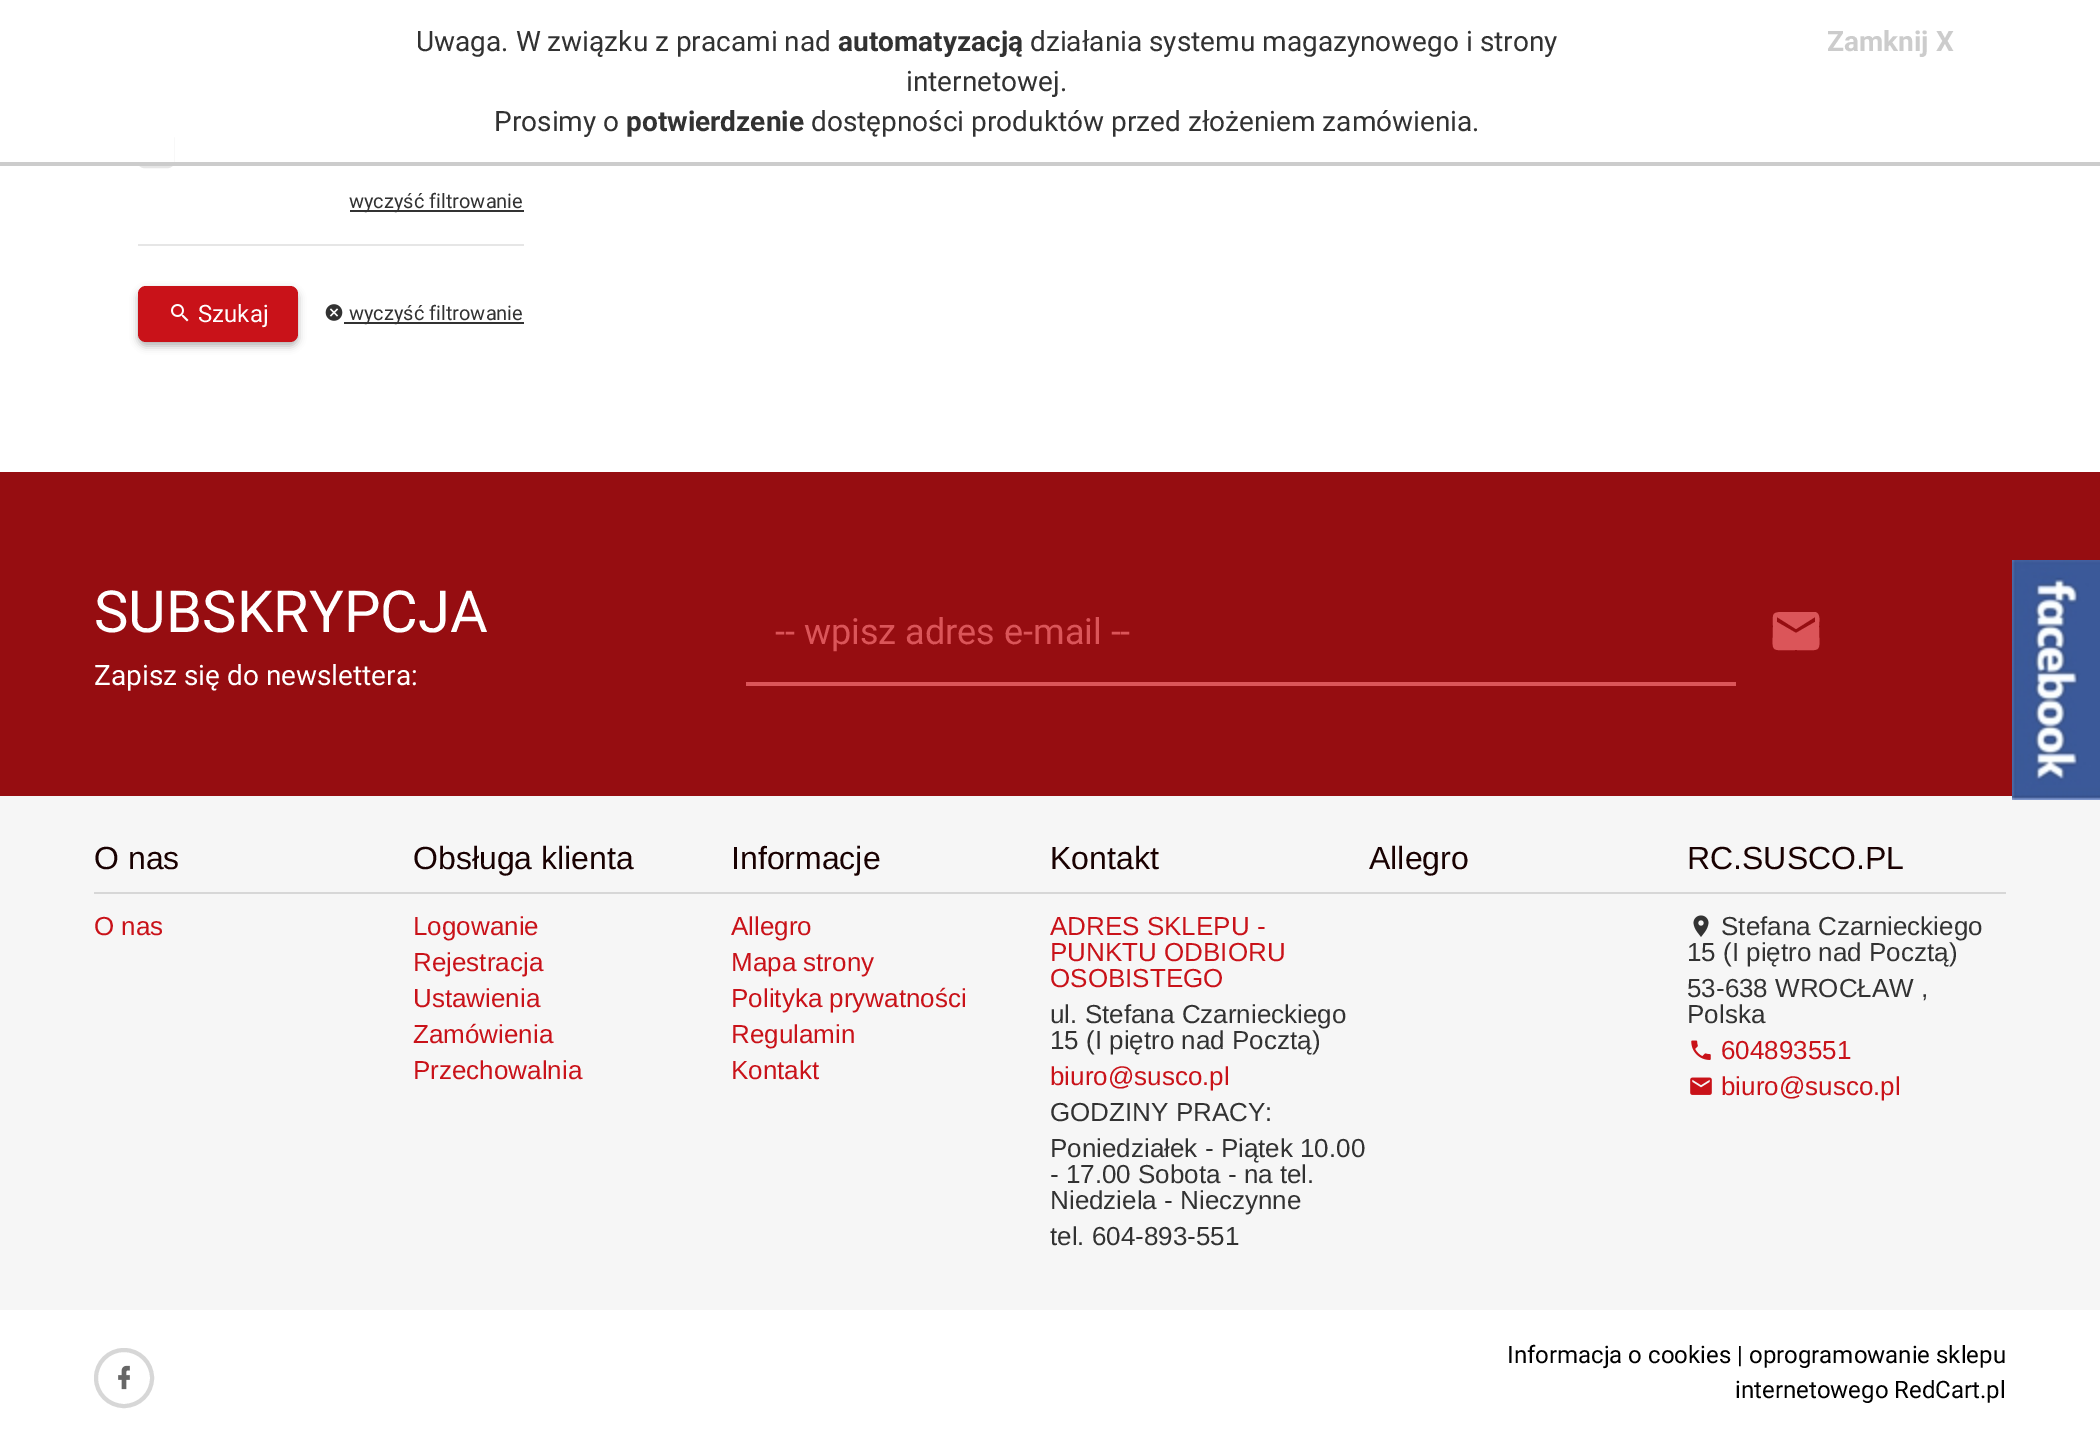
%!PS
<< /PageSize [2100 1446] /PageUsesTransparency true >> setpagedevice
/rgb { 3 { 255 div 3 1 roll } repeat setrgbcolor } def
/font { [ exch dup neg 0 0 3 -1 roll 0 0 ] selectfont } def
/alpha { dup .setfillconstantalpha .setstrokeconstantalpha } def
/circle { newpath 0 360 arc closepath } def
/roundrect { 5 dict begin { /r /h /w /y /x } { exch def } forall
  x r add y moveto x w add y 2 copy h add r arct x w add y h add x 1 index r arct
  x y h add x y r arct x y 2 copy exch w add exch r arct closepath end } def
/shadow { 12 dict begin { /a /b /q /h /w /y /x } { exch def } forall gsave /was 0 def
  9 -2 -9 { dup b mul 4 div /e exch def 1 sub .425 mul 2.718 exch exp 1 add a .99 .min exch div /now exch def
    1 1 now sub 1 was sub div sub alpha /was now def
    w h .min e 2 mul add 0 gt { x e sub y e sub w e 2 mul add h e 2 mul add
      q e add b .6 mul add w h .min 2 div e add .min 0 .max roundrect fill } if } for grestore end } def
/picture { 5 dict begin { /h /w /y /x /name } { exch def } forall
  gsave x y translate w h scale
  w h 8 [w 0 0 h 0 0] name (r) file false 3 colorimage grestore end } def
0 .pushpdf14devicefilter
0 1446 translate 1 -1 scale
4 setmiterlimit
255 255 255 rgb
0 0 2100 1446 rectfill
230 230 230 rgb
2 setlinewidth
139 133 34 34 5 roundrect stroke
[
  [138 132 36 30 255 255 255]
  [0 162 2100 4 204 204 204]
  [350 210 174 2 50 50 50]
  [138 244 386 2 230 230 230]
] { aload pop rgb rectfill } forall
0 0 0 rgb
138 290 160 56 8 4 0.3 shadow
201 18 25 rgb
138 286 160 56 8 roundrect fill
(img/1.rgb) 171 304 18 18 picture
(img/2.rgb) 325 304 18 17 picture
[
  [344 322 180 2 50 50 50]
  [0 472 2100 324 150 13 17]
  [746 682 990 4 219 85 89]
] { aload pop rgb rectfill } forall
1815 622 moveto 1796 633 lineto 1777 622 lineto 1777 617 lineto 1796 629 lineto 1815 617 lineto closepath 1815 612 moveto 1784 612 lineto 1771 612 1773 614 1773 626 curveto 1773 654 1768 650 1796 650 curveto 1824 650 1819 654 1819 626 curveto 1819 622 1821 613 1815 612 curveto closepath fill
246 246 246 rgb
0 796 2100 514 rectfill
215 215 215 rgb
94 892 1912 2 rectfill
(img/3.rgb) 1693 915 16 22 picture
(img/4.rgb) 1691 1040 20 20 picture
(img/5.rgb) 1690 1077 22 18 picture
4 setlinewidth
124 1378 28 circle stroke
(img/6.rgb) 118 1365 12 25 picture
(img/7.rgb) 2012 560 88 240 picture
/Roboto-Regular 28 font
50 50 50 rgb
416 51 moveto (Uwaga. W związku z pracami nad) show
/Roboto-Bold 28 font
838 51 moveto (automatyzacją) show
/Roboto-Regular 28 font
[
  [(działania systemu magazynowego i strony) 1030 51]
  [(internetowej.) 906 91]
  [(Prosimy o) 494 131]
] { aload pop moveto show } forall
/Roboto-Bold 28 font
626 131 moveto (potwierdzenie) show
/Roboto-Regular 28 font
811 131 moveto (dostępności produktów przed złożeniem zamówienia.) show
/Roboto-Bold 28 font
204 204 204 rgb
1827 51 moveto (Zamknij X) show
/Roboto-Regular 20 font
50 50 50 rgb
349 208 moveto (wyczyść filtrowanie) show
/Roboto-Regular 24 font
255 255 255 rgb
198 322 moveto (Szukaj) show
/Roboto-Regular 20 font
50 50 50 rgb
349 320 moveto (wyczyść filtrowanie) show
/Roboto-Regular 58 font
255 255 255 rgb
94 632 moveto (SUBSKRYPCJA) show
/Roboto-Regular 28 font
94 685 moveto (Zapisz się do newslettera:) show
/Roboto-Regular 36 font
219 85 89 rgb
775 644 moveto (-- wpisz adres e-mail --) show
/LiberationSans-Regular 32 font
25 1 1 rgb
94 869 moveto (O nas) show
/LiberationSans-Regular 26 font
201 18 25 rgb
94 935 moveto (O nas) show
/LiberationSans-Regular 32 font
25 1 1 rgb
413 869 moveto (Obsługa klienta) show
/LiberationSans-Regular 26 font
201 18 25 rgb
[
  [(Logowanie) 413 935]
  [(Rejestracja) 413 971]
  [(Ustawienia) 413 1007]
  [(Zamówienia) 413 1043]
  [(Przechowalnia) 413 1079]
] { aload pop moveto show } forall
/LiberationSans-Regular 32 font
25 1 1 rgb
731 869 moveto (Informacje) show
/LiberationSans-Regular 26 font
201 18 25 rgb
[
  [(Allegro) 731 935]
  [(Mapa strony) 731 971]
  [(Polityka prywatności) 731 1007]
  [(Regulamin) 731 1043]
  [(Kontakt) 731 1079]
] { aload pop moveto show } forall
/LiberationSans-Regular 32 font
25 1 1 rgb
1050 869 moveto (Kontakt) show
/LiberationSans-Regular 26 font
201 18 25 rgb
[
  [(ADRES SKLEPU -) 1050 935]
  [(PUNKTU ODBIORU) 1050 961]
  [(OSOBISTEGO) 1050 987]
] { aload pop moveto show } forall
50 50 50 rgb
1050 1023 moveto (ul. Stefana Czarnieckiego) show
1050 1049 moveto (15 \(I piętro nad Pocztą\)) show
201 18 25 rgb
1050 1085 moveto (biuro@susco.pl) show
50 50 50 rgb
[
  [(GODZINY PRACY:) 1050 1121]
  [(Poniedziałek - Piątek 10.00) 1050 1157]
  [(- 17.00 Sobota - na tel.) 1050 1183]
  [(Niedziela - Nieczynne) 1050 1209]
  [(tel. 604-893-551) 1050 1245]
] { aload pop moveto show } forall
/LiberationSans-Regular 32 font
25 1 1 rgb
1369 869 moveto (Allegro) show
1687 869 moveto (RC.SUSCO.PL) show
/LiberationSans-Regular 26 font
50 50 50 rgb
[
  [(Stefana Czarnieckiego) 1721 935]
  [(15 \(I piętro nad Pocztą\)) 1687 961]
  [(53-638 WROCŁAW ,) 1687 997]
  [(Polska) 1687 1023]
] { aload pop moveto show } forall
201 18 25 rgb
1721 1059 moveto (604893551) show
1721 1095 moveto (biuro@susco.pl) show
/Roboto-Regular 24 font
0 0 0 rgb
1507 1363 moveto (Informacja o cookies | oprogramowanie sklepu) show
1735 1398 moveto (internetowego RedCart.pl) show
.poppdf14devicefilter showpage
